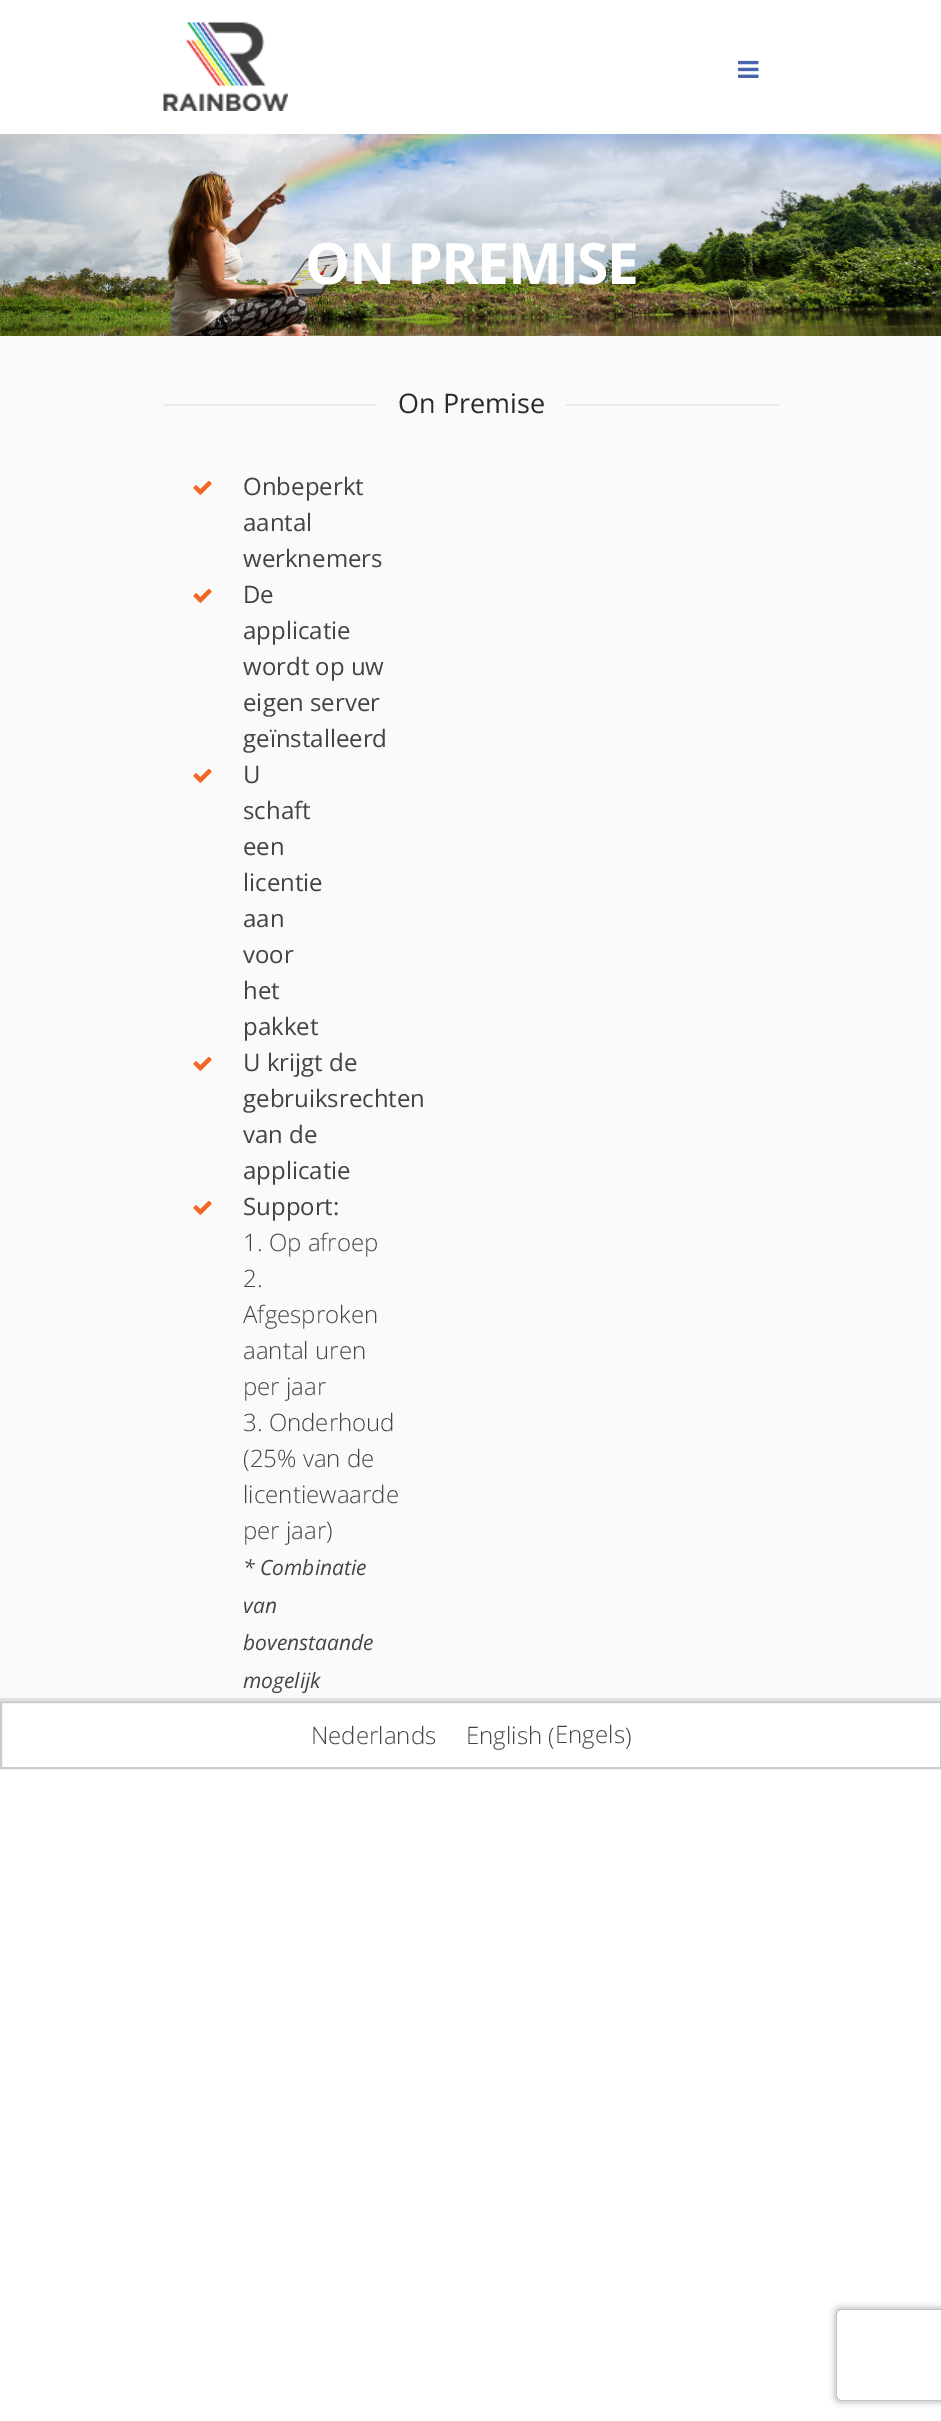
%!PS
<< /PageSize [941 2421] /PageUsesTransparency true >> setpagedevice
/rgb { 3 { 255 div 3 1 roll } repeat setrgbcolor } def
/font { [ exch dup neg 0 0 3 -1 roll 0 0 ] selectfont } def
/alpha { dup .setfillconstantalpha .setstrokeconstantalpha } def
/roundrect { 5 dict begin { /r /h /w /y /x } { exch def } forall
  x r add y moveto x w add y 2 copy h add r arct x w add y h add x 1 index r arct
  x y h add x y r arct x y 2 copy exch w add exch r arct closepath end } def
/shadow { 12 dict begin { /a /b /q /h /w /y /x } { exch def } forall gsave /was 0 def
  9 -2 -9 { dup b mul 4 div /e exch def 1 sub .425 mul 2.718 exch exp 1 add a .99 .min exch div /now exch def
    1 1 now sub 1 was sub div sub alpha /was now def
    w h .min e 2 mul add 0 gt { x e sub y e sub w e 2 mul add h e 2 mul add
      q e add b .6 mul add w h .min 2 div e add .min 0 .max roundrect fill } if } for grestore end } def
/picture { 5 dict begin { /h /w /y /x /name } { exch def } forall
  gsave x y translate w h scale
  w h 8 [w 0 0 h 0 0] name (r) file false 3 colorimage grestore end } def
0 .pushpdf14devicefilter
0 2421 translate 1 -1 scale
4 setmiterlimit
255 255 255 rgb
0 0 941 2421 rectfill
(img/1.rgb) 163 22 125 89 picture
(img/2.rgb) 738 60 21 18 picture
(img/3.rgb) 0 134 941 202 picture
[
  [0 336 941 1362 250 250 250]
  [0 1698 941 3 227 227 227]
  [164 404 213 2 235 235 235]
  [566 404 213 2 235 235 235]
] { aload pop rgb rectfill } forall
(img/4.rgb) 193 480 19 15 picture
(img/4.rgb) 193 588 19 15 picture
(img/4.rgb) 193 768 19 15 picture
(img/4.rgb) 193 1056 19 15 picture
(img/4.rgb) 193 1200 19 15 picture
205 205 205 rgb
2 setlinewidth
1 1702 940 66 rectstroke
gsave
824 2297 moveto 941 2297 lineto 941 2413 lineto 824 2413 lineto closepath 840 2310 moveto 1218 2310 lineto 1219.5 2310 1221 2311.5 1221 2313 curveto 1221 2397 lineto 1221 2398.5 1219.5 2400 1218 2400 curveto 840 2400 lineto 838.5 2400 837 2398.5 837 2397 curveto 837 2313 lineto 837 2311.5 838.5 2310 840 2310 curveto closepath eoclip newpath
128 128 128 rgb
837 2310 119 90 3 4 1 shadow
grestore
/OpenSans-Bold 57 font
255 255 255 rgb
305 284 moveto -1.5 0 (ON PREMISE) ashow
/OpenSans-Regular 27 font
42 42 42 rgb
398 413 moveto (On Premise) show
/OpenSans-Regular 24 font
68 68 68 rgb
[
  [(Onbeperkt) 243 495]
  [(aantal) 243 531]
  [(werknemers) 243 567]
  [(De) 243 603]
  [(applicatie) 243 639]
  [(wordt op uw) 243 675]
  [(eigen server) 243 711]
  [(geïnstalleerd) 243 747]
  [(U) 243 783]
  [(schaft) 243 819]
  [(een) 243 855]
  [(licentie) 243 891]
  [(aan) 243 927]
  [(voor) 243 963]
  [(het) 243 999]
  [(pakket) 243 1035]
  [(U krijgt de) 243 1071]
  [(gebruiksrechten) 243 1107]
  [(van de) 243 1143]
  [(applicatie) 243 1179]
  [(Support:) 243 1215]
] { aload pop moveto show } forall
/OpenSans-Light 24 font
[
  [(1. Op afroep) 243 1251]
  [(2.) 243 1287]
  [(Afgesproken) 243 1323]
  [(aantal uren) 243 1359]
  [(per jaar) 243 1395]
  [(3. Onderhoud) 243 1431]
  [(\(25% van de) 243 1467]
  [(licentiewaarde) 243 1503]
  [(per jaar\)) 243 1539]
] { aload pop moveto show } forall
/OpenSans-Italic 21 font
[
  [(* Combinatie) 243 1575]
  [(van) 243 1613]
  [(bovenstaande) 243 1650]
  [(mogelijk) 243 1688]
] { aload pop moveto show } forall
/OpenSans-Light 24 font
[
  [(Nederlands) 311 1744]
  [(English) 466 1744]
  [(\() 548 1745]
  [(Engels) 555 1743]
  [(\)) 625 1745]
] { aload pop moveto show } forall
.poppdf14devicefilter showpage
